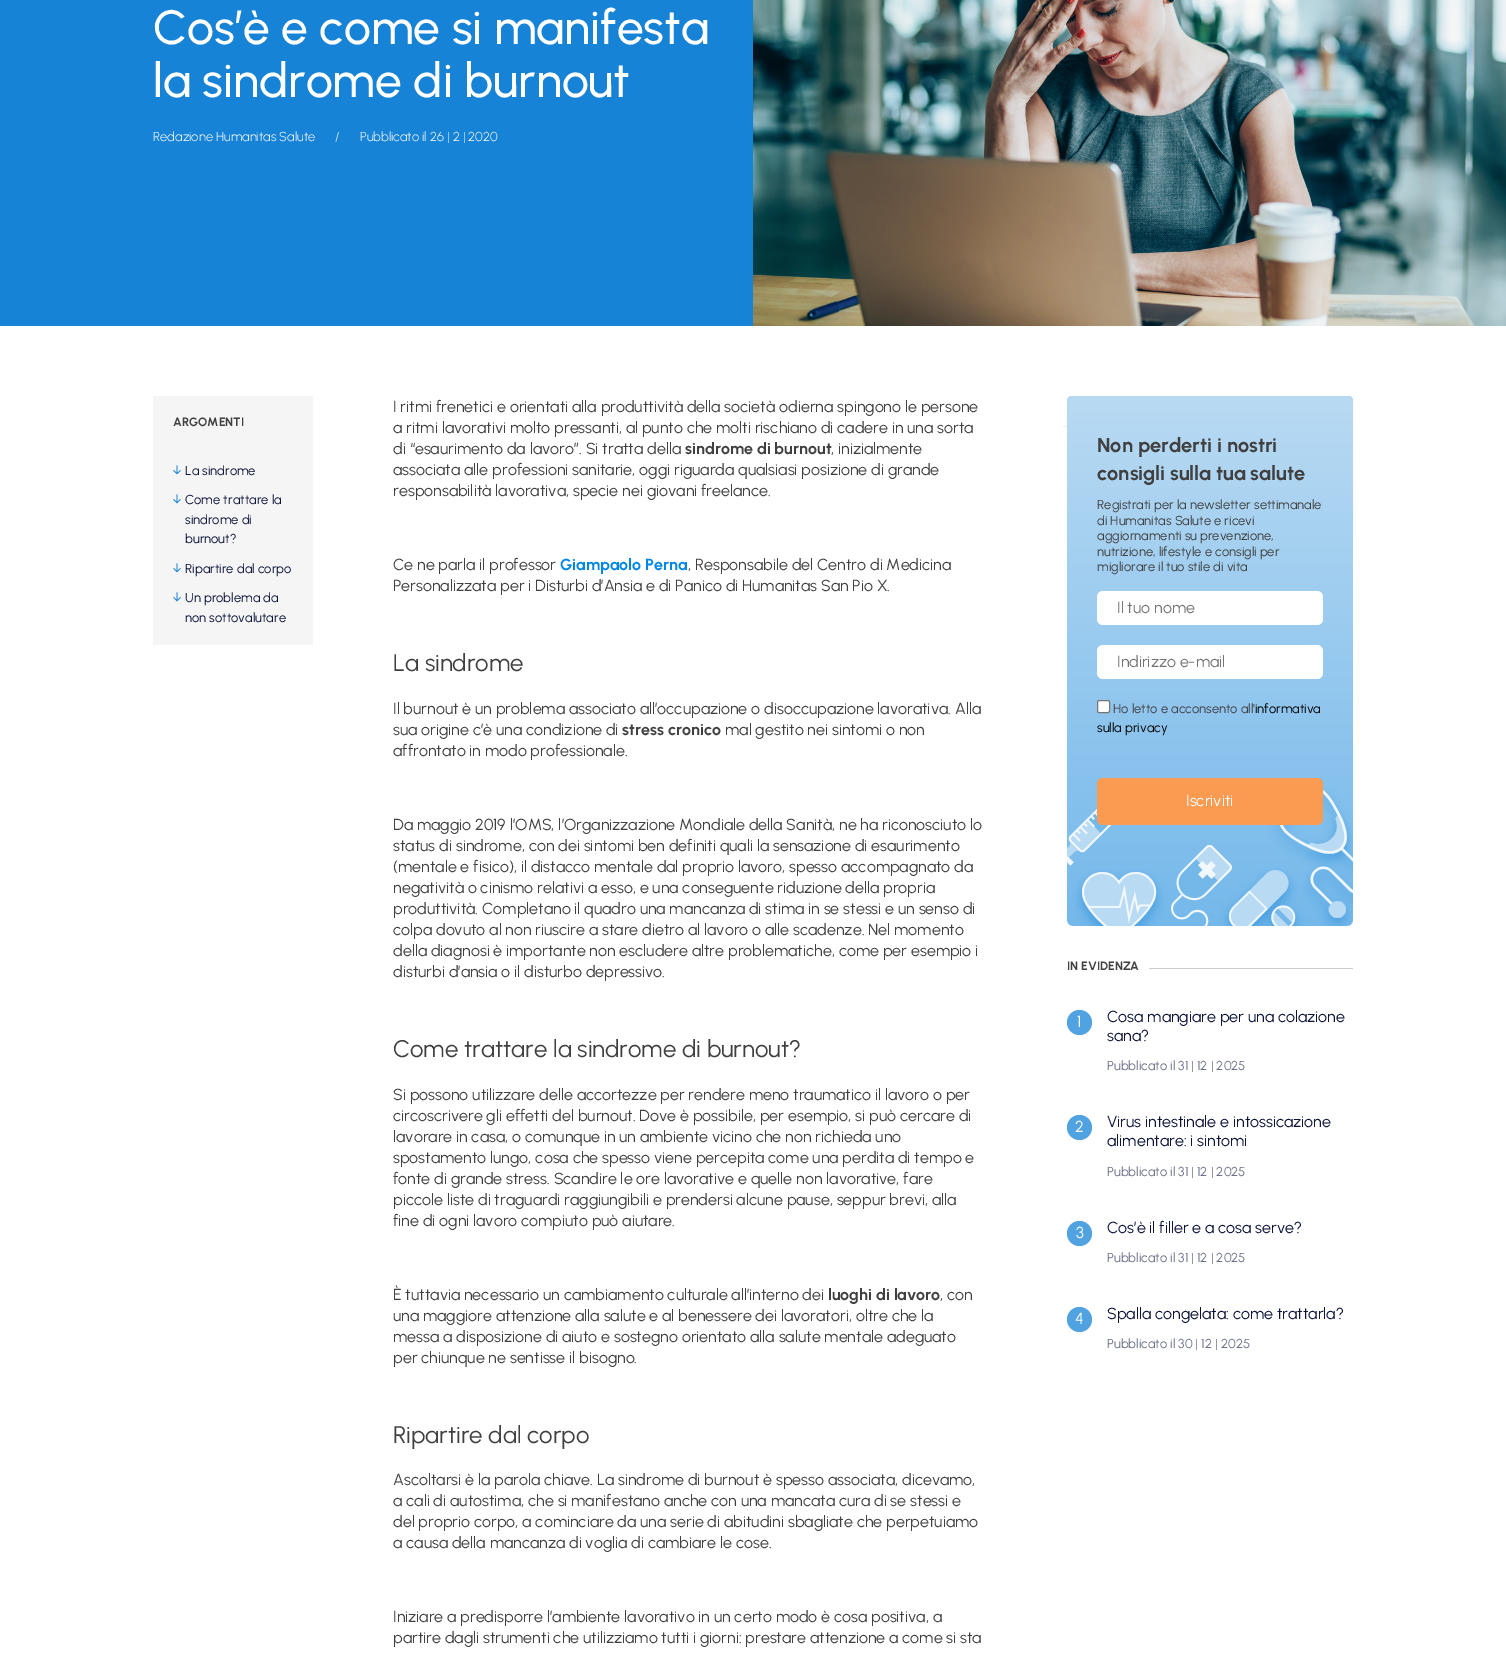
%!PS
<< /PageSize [1506 1659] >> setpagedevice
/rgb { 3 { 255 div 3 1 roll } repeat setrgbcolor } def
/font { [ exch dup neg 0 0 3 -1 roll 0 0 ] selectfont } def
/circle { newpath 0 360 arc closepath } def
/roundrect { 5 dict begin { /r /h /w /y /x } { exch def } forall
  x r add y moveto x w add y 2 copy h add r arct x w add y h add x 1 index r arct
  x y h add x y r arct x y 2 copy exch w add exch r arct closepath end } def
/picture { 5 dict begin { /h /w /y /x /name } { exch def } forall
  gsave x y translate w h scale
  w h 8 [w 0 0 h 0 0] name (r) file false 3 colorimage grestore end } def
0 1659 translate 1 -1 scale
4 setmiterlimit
255 255 255 rgb
0 0 1506 1659 rectfill
23 131 215 rgb
0 0 753 326 rectfill
(img/1.rgb) 753 0 753 326 picture
245 245 245 rgb
153 396 160 249 rectfill
(img/2.rgb) 173 465 8 9 picture
(img/3.rgb) 173 494 8 10 picture
(img/2.rgb) 173 563 8 9 picture
(img/3.rgb) 173 592 8 10 picture
235 235 235 rgb
1063 426 4 1 rectfill
gsave 1067 396 286 530 6 roundrect clip newpath
<< /ShadingType 2 /ColorSpace /DeviceRGB /Coords [1210 396 1210 926] /Extend [true true] /Function << /FunctionType 2 /Domain [0 1] /C0 [0.725 0.855 0.953] /C1 [0.455 0.722 0.918] /N 1 >> >> shfill grestore
255 255 255 rgb
1097 591 226 34 6 roundrect fill
1097 645 226 34 6 roundrect fill
1097.5 700.5 12 12 1.5 roundrect gsave fill grestore
118 118 118 rgb
stroke
(img/4.rgb) 1067 786 286 140 picture
251 155 81 rgb
1097 778 226 47 6 roundrect fill
204 204 204 rgb
1149 968 204 1 rectfill
81 162 225 rgb
1079.5 1022.5 12.5 circle fill
1079.5 1127.5 12.5 circle fill
1079.5 1233.5 12.5 circle fill
1079.5 1319.5 12.5 circle fill
/Urbanist-Medium 48 font
255 255 255 rgb
153 44 moveto (Cos’è e come si manifesta) show
153 97 moveto (la sindrome di burnout) show
/Urbanist-Light 13 font
[
  [(Redazione Humanitas Salute) 153 141]
  [(/) 335 141]
  [(Pubblicato il 26 | 2 | 2020) 360 141]
] { aload pop moveto show } forall
/Urbanist-Bold 12 font
64 64 64 rgb
173 426 moveto (ARGOMENTI) show
/Urbanist-Regular 13 font
12 20 58 rgb
[
  [(La sindrome) 185 475]
  [(Come trattare la) 185 504]
  [(sindrome di) 185 524]
  [(burnout?) 185 543]
  [(Ripartire dal corpo) 185 573]
  [(Un problema da) 185 602]
  [(non sottovalutare) 185 622]
] { aload pop moveto show } forall
/Urbanist-Regular 16 font
64 64 64 rgb
[
  [(I ritmi frenetici e orientati alla produttività della società odierna spingono le persone) 393 412]
  [(a ritmi lavorativi molto pressanti, al punto che molti rischiano di cadere in una sorta) 393 433]
  [(di “esaurimento da lavoro”. Si tratta della) 393 454]
] { aload pop moveto show } forall
/Urbanist-Bold 16 font
685 454 moveto (sindrome di burnout) show
/Urbanist-Regular 16 font
[
  [(, inizialmente) 831 454]
  [(associata alle professioni sanitarie, oggi riguarda qualsiasi posizione di grande) 393 475]
  [(responsabilità lavorativa, specie nei giovani freelance.) 393 496]
  [(Ce ne parla il professor) 393 570]
] { aload pop moveto show } forall
/Urbanist-Bold 16 font
0 134 230 rgb
560 570 moveto (Giampaolo Perna) show
/Urbanist-Regular 16 font
64 64 64 rgb
688 570 moveto (, Responsabile del Centro di Medicina) show
393 591 moveto (Personalizzata per i Disturbi d’Ansia e di Panico di Humanitas San Pio X.) show
/Urbanist-Regular 24 font
393 671 moveto (La sindrome) show
/Urbanist-Regular 16 font
393 714 moveto (Il burnout è un problema associato all’occupazione o disoccupazione lavorativa. Alla) show
393 735 moveto (sua origine c’è una condizione di) show
/Urbanist-Bold 16 font
622 735 moveto (stress cronico) show
/Urbanist-Regular 16 font
[
  [(mal gestito nei sintomi o non) 725 735]
  [(affrontato in modo professionale.) 393 756]
  [(Da maggio 2019 l’OMS, l’Organizzazione Mondiale della Sanità, ne ha riconosciuto lo) 393 830]
  [(status di sindrome, con dei sintomi ben definiti quali la sensazione di esaurimento) 393 851]
  [(\(mentale e fisico\), il distacco mentale dal proprio lavoro, spesso accompagnato da) 393 872]
  [(negatività o cinismo relativi a esso, e una conseguente riduzione della propria) 393 893]
  [(produttività. Completano il quadro una mancanza di stima in se stessi e un senso di) 393 914]
  [(colpa dovuto al non riuscire a stare dietro al lavoro o alle scadenze. Nel momento) 393 935]
  [(della diagnosi è importante non escludere altre problematiche, come per esempio i) 393 956]
  [(disturbi d’ansia o il disturbo depressivo.) 393 977]
] { aload pop moveto show } forall
/Urbanist-Regular 24 font
393 1057 moveto (Come trattare la sindrome di burnout?) show
/Urbanist-Regular 16 font
[
  [(Si possono utilizzare delle accortezze per rendere meno traumatico il lavoro o per) 393 1100]
  [(circoscrivere gli effetti del burnout. Dove è possibile, per esempio, si può cercare di) 393 1121]
  [(lavorare in casa, o comunque in un ambiente vicino che non richieda uno) 393 1142]
  [(spostamento lungo, cosa che spesso viene percepita come una perdita di tempo e) 393 1163]
  [(fonte di grande stress. Scandire le ore lavorative e quelle non lavorative, fare) 393 1184]
  [(piccole liste di traguardi raggiungibili e prendersi alcune pause, seppur brevi, alla) 393 1205]
  [(fine di ogni lavoro compiuto può aiutare.) 393 1226]
  [(È tuttavia necessario un cambiamento culturale all’interno dei) 393 1300]
] { aload pop moveto show } forall
/Urbanist-Bold 16 font
828 1300 moveto (luoghi di lavoro) show
/Urbanist-Regular 16 font
[
  [(, con) 940 1300]
  [(una maggiore attenzione alla salute e al benessere dei lavoratori, oltre che la) 393 1321]
  [(messa a disposizione di aiuto e sostegno orientato alla salute mentale adeguato) 393 1342]
  [(per chiunque ne sentisse il bisogno.) 393 1363]
] { aload pop moveto show } forall
/Urbanist-Regular 24 font
393 1443 moveto (Ripartire dal corpo) show
/Urbanist-Regular 16 font
[
  [(Ascoltarsi è la parola chiave. La sindrome di burnout è spesso associata, dicevamo,) 393 1485]
  [(a cali di autostima, che si manifestano anche con una mancata cura di se stessi e) 393 1506]
  [(del proprio corpo, a cominciare da una serie di abitudini sbagliate che perpetuiamo) 393 1527]
  [(a causa della mancanza di voglia di cambiare le cose.) 393 1548]
  [(Iniziare a predisporre l’ambiente lavorativo in un certo modo è cosa positiva, a) 393 1622]
  [(partire dagli strumenti che utilizziamo tutti i giorni: prestare attenzione a come si sta) 393 1643]
] { aload pop moveto show } forall
/Urbanist-Bold 20 font
1097 452 moveto (Non perderti i nostri) show
1097 480 moveto (consigli sulla tua salute) show
/Urbanist-Regular 13 font
[
  [(Registrati per la newsletter settimanale) 1097 509]
  [(di Humanitas Salute e ricevi) 1097 525]
  [(aggiornamenti su prevenzione,) 1097 540]
  [(nutrizione, lifestyle e consigli per) 1097 556]
  [(migliorare il tuo stile di vita) 1097 571]
] { aload pop moveto show } forall
/Urbanist-Regular 16 font
117 117 117 rgb
1117 613 moveto (Il tuo nome) show
1117 667 moveto (Indirizzo e-mail) show
/Urbanist-Regular 13 font
64 64 64 rgb
1113 713 moveto (Ho letto e acconsento all') show
0 0 0 rgb
1255 713 moveto (informativa) show
1097 732 moveto (sulla privacy) show
/Urbanist-Regular 16 font
255 255 255 rgb
1186 806 moveto (Iscriviti) show
/Urbanist-Bold 12 font
64 64 64 rgb
1067 970 moveto (IN EVIDENZA) show
/Urbanist-Regular 16 font
255 255 255 rgb
1077 1027 moveto (1) show
12 20 58 rgb
1107 1022 moveto (Cosa mangiare per una colazione) show
1107 1041 moveto (sana?) show
/Urbanist-Regular 13 font
109 114 137 rgb
1107 1070 moveto (Pubblicato il 31 | 12 | 2025) show
/Urbanist-Regular 16 font
255 255 255 rgb
1075 1132 moveto (2) show
12 20 58 rgb
1107 1127 moveto (Virus intestinale e intossicazione) show
1107 1146 moveto (alimentare: i sintomi) show
/Urbanist-Regular 13 font
109 114 137 rgb
1107 1176 moveto (Pubblicato il 31 | 12 | 2025) show
/Urbanist-Regular 16 font
255 255 255 rgb
1076 1238 moveto (3) show
12 20 58 rgb
1107 1233 moveto (Cos’è il filler e a cosa serve?) show
/Urbanist-Regular 13 font
109 114 137 rgb
1107 1262 moveto (Pubblicato il 31 | 12 | 2025) show
/Urbanist-Regular 16 font
255 255 255 rgb
1075 1324 moveto (4) show
12 20 58 rgb
1107 1319 moveto (Spalla congelata: come trattarla?) show
/Urbanist-Regular 13 font
109 114 137 rgb
1107 1348 moveto (Pubblicato il 30 | 12 | 2025) show
showpage
